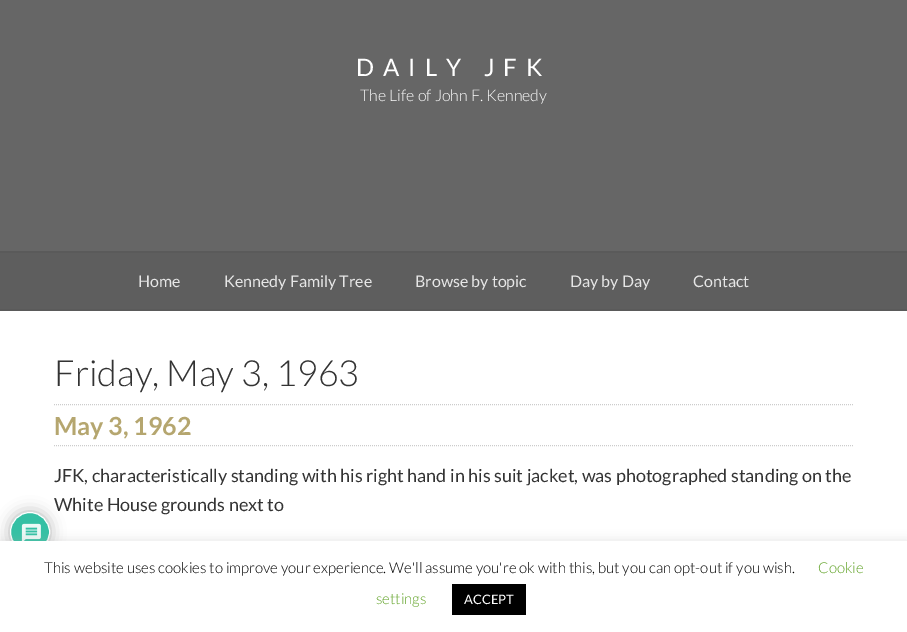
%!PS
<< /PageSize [907 632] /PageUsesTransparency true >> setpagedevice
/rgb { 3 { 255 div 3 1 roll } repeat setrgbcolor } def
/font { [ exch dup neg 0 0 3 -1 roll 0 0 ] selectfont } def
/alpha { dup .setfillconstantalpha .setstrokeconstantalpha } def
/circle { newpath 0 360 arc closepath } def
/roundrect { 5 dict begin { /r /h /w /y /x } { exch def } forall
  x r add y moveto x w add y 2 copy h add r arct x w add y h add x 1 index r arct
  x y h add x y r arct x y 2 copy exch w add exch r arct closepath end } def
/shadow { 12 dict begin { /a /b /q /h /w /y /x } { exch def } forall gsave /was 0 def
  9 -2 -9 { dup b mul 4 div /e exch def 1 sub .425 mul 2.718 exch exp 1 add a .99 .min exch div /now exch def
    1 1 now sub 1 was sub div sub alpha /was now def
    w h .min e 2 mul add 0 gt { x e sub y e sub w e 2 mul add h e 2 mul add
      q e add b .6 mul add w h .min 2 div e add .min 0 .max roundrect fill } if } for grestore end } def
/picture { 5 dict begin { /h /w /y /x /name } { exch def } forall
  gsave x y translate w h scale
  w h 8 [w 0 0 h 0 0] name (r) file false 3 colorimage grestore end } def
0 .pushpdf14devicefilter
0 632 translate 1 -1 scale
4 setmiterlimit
255 255 255 rgb
0 0 907 632 rectfill
[
  [0 0 907 251 102 102 102]
  [0 253 907 56 94 94 94]
  [0 251 907 2 90 90 90]
  [0 309 907 2 90 90 90]
] { aload pop rgb rectfill } forall
204 204 204 rgb
[1 1] 0 setdash
54 404.5 moveto 854 404.5 lineto stroke
54 445.5 moveto 854 445.5 lineto stroke
170 170 170 rgb
10 512 40 40 20 7.5 0.9 shadow
52 192 164 rgb
30 532 19.5 circle gsave fill grestore
255 255 255 rgb
[] 0 setdash
stroke
(img/1.rgb) 21 523 20 18 picture
172 171 171 rgb
0 540 907 91 0 5 0.3 shadow
255 255 255 rgb
0 541 907 91 rectfill
0 0 0 rgb
452 584 74 31 rectfill
/Lato-Regular 24 font
255 255 255 rgb
356 76 moveto 9 0 (DAILY JFK) ashow
/Lato-Light 16 font
360 101 moveto (The Life of John F. Kennedy) show
/Lato-Regular 16 font
230 230 230 rgb
[
  [(Home) 138 287]
  [(Kennedy Family Tree) 224 287]
  [(Browse by topic) 415 287]
  [(Day by Day) 570 287]
  [(Contact) 693 287]
] { aload pop moveto show } forall
/Lato-Light 36 font
51 51 51 rgb
54 386 moveto (Friday, May 3, 1963) show
/Lato-Bold 25 font
181 166 111 rgb
54 435 moveto (May 3, 1962) show
/Lato-Regular 18 font
51 51 51 rgb
54 482 moveto (JFK, characteristically standing with his right hand in his suit jacket, was photographed standing on the) show
54 511 moveto (White House grounds next to) show
/Lato-Light 15 font
0 0 0 rgb
44 573 moveto (This website uses cookies to improve your experience. We'll assume you're ok with this, but you can opt-out if you wish.) show
98 163 41 rgb
818 573 moveto (Cookie) show
376 604 moveto (settings) show
/Lato-Regular 13 font
255 255 255 rgb
464 604 moveto (ACCEPT) show
.poppdf14devicefilter showpage
